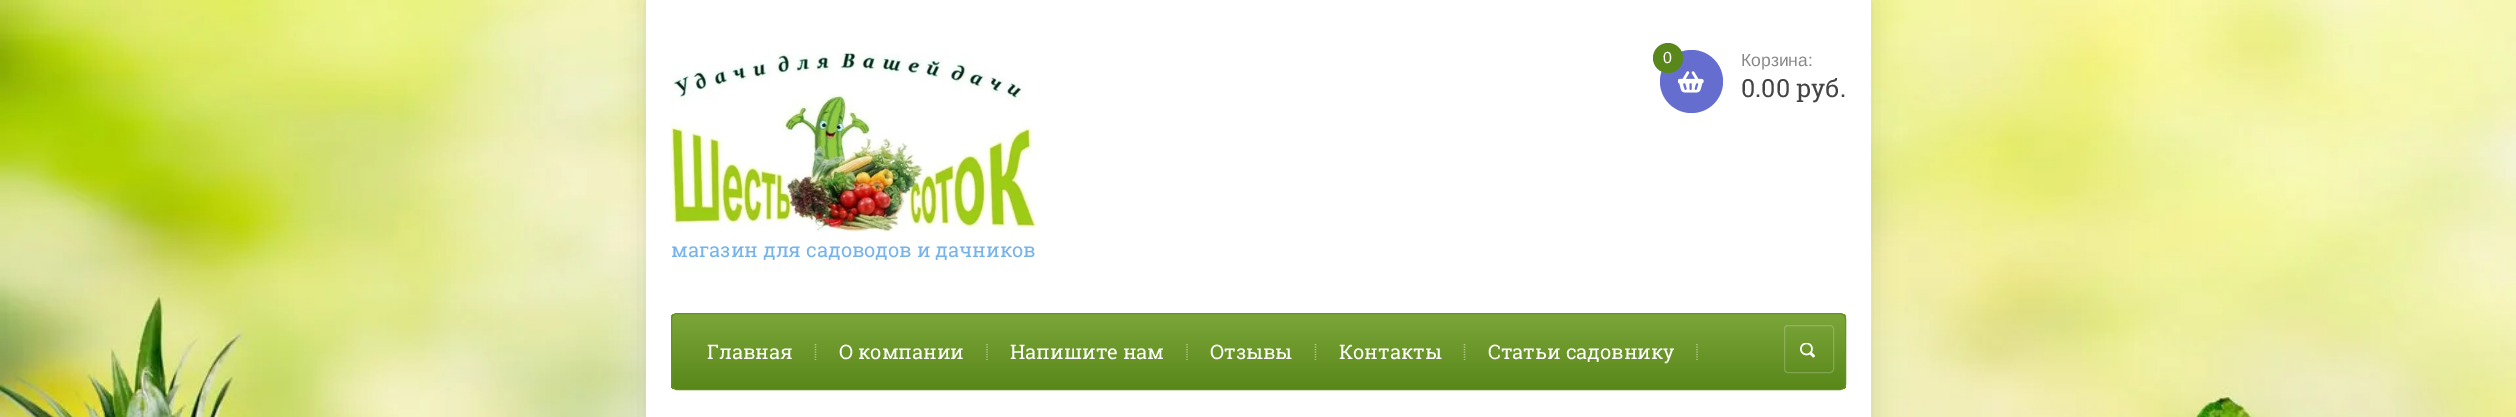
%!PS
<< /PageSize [2516 417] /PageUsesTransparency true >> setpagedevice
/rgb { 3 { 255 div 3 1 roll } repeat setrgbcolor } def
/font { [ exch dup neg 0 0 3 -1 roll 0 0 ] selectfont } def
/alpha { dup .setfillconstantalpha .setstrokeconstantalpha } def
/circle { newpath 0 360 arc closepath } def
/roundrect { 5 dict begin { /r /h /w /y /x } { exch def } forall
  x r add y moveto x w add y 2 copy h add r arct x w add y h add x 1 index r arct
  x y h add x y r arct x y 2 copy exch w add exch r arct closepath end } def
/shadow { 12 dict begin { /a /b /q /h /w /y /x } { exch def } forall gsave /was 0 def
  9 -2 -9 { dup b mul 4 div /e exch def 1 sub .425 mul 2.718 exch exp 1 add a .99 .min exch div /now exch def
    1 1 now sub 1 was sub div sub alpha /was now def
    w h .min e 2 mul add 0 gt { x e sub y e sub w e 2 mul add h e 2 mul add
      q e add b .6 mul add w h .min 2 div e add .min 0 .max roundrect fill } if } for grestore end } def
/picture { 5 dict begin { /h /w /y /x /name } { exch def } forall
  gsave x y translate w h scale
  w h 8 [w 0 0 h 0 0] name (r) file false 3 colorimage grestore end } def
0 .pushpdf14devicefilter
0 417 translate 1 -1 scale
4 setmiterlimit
255 255 255 rgb
0 0 2516 417 rectfill
(img/1.rgb) 0 0 2516 417 picture
0 0 0 rgb
646 0 1225 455 0 12.5 0.1 shadow
255 255 255 rgb
646 0 1225 417 rectfill
101 110 207 rgb
1691.5 81.5 31.5 circle fill
(img/2.rgb) 1678 71 26 22 picture
89 135 26 rgb
1668 58 15 circle fill
(img/3.rgb) 671 53 364 179 picture
gsave
671 313 1175 77 6 roundrect clip newpath
gsave 671 314 moveto 1846 314 lineto 1846 389 lineto 671 389 lineto closepath clip newpath
<< /ShadingType 2 /ColorSpace /DeviceRGB /Coords [1259 314 1259 389] /Extend [true true] /Function << /FunctionType 2 /Domain [0 1] /C0 [0.486 0.651 0.227] /C1 [0.349 0.529 0.102] /N 1 >> >> shfill grestore
grestore
96 146 28 rgb
671.5 313.5 1174 76 5.5 roundrect stroke
0.5 alpha
253 249 238 rgb
1.2 setlinewidth
[1.25 1.25] 0 setdash
815.5 344 moveto 815.5 360 lineto stroke
987 344 moveto 987 360 lineto stroke
1187 344 moveto 1187 360 lineto stroke
1315.5 344 moveto 1315.5 360 lineto stroke
1464.5 344 moveto 1464.5 360 lineto stroke
1697 344 moveto 1697 360 lineto stroke
0.2 alpha
255 255 255 rgb
1 setlinewidth
[] 0 setdash
1784.5 325.5 49 47 3.5 roundrect stroke
1 alpha
(img/4.rgb) 1800 343 15 15 picture
/LiberationSans-Regular 16 font
1663 63 moveto (0) show
/LiberationSans-Regular 17.5 font
136 136 136 rgb
1741 66 moveto (Корзина:) show
/RobotoSlab-Regular 25 font
68 68 68 rgb
1741 97 moveto (0.00 руб.) show
/RobotoSlab-Regular 20 font
117 179 237 rgb
671 257 moveto (магазин для садоводов и дачников) show
255 255 255 rgb
[
  [(Главная) 707 359]
  [(О компании) 839 359]
  [(Напишите нам) 1010 359]
  [(Отзывы) 1210 359]
  [(Контакты) 1339 359]
  [(Статьи садовнику) 1488 359]
] { aload pop moveto show } forall
.poppdf14devicefilter showpage
